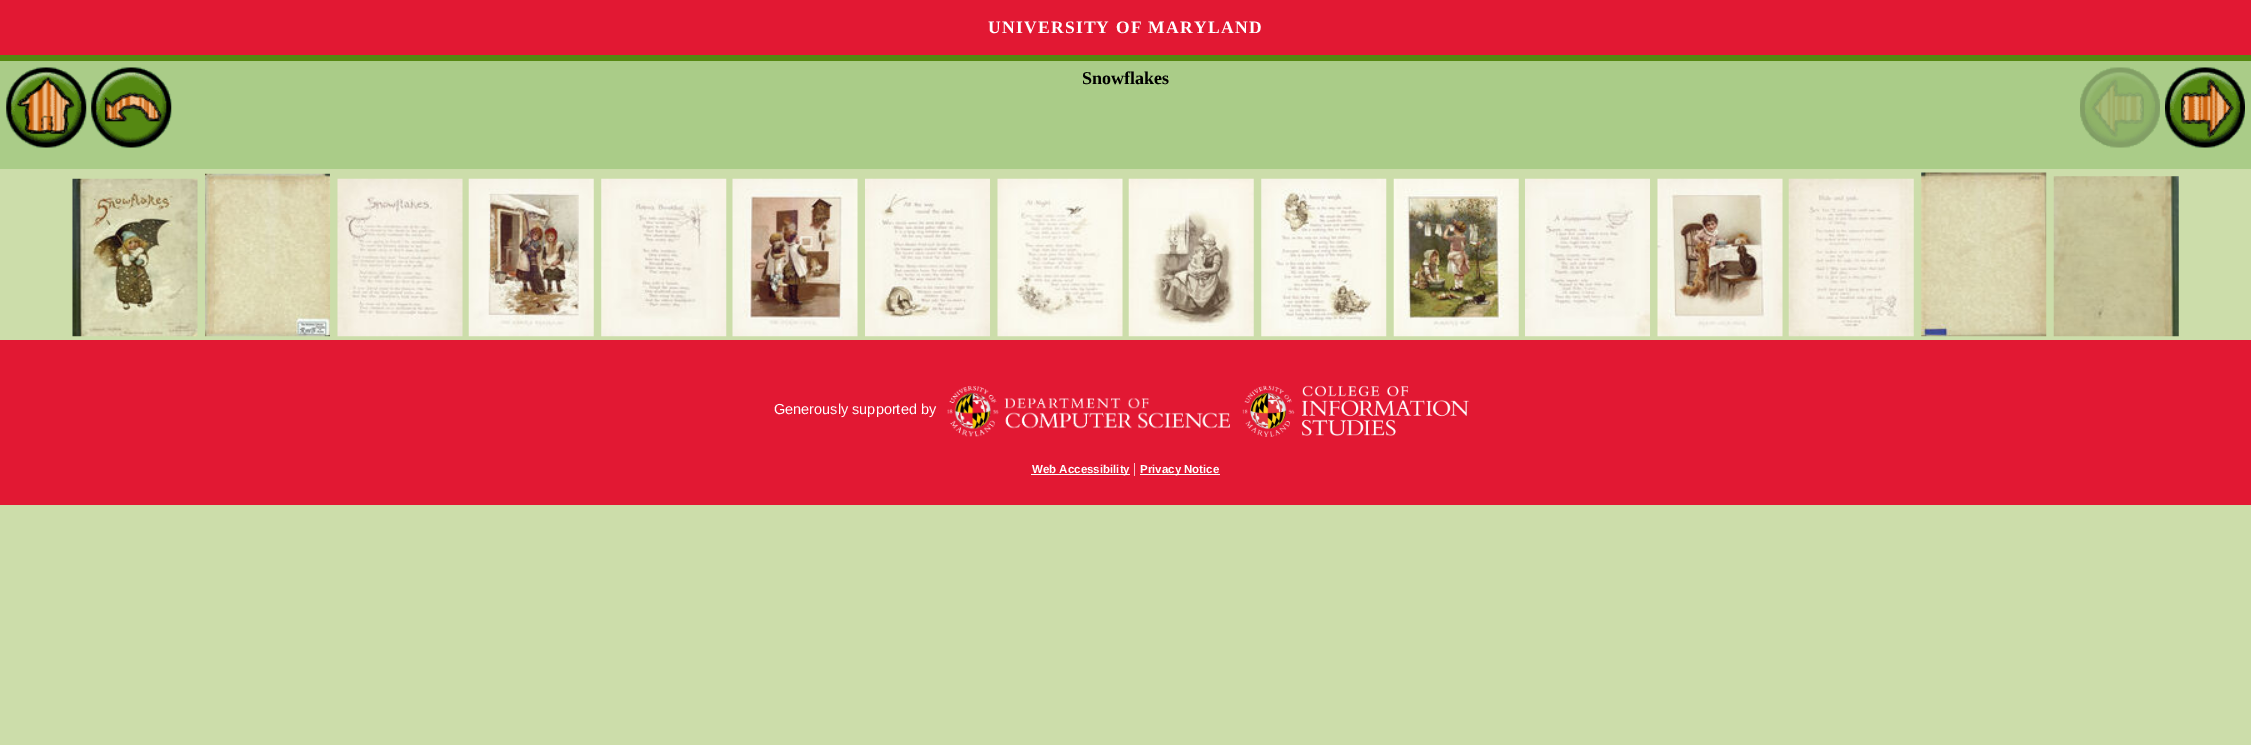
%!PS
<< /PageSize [2251 745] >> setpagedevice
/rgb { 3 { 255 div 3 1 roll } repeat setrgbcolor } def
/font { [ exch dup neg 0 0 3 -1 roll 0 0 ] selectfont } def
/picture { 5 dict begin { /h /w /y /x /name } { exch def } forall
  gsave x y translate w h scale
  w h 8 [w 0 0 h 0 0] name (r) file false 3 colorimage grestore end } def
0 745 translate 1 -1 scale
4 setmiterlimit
204 221 170 rgb
0 0 2251 745 rectfill
[
  [0 0 2251 55 226 24 51]
  [0 61 2251 108 170 204 136]
  [0 55 2251 6 85 136 17]
] { aload pop rgb rectfill } forall
(img/1.rgb) 6 67 81 81 picture
(img/2.rgb) 91 67 81 81 picture
(img/3.rgb) 2080 67 80 81 picture
(img/4.rgb) 2165 67 80 81 picture
(img/5.rgb) 72 178 126 159 picture
(img/6.rgb) 205 173 125 164 picture
(img/7.rgb) 337 178 126 159 picture
(img/8.rgb) 468 178 126 159 picture
(img/9.rgb) 601 178 126 159 picture
(img/10.rgb) 732 178 126 159 picture
(img/11.rgb) 865 178 125 159 picture
(img/12.rgb) 997 178 126 159 picture
(img/13.rgb) 1128 178 126 159 picture
(img/14.rgb) 1261 178 126 159 picture
(img/15.rgb) 1393 178 126 159 picture
(img/16.rgb) 1525 178 125 159 picture
(img/17.rgb) 1657 178 126 159 picture
(img/18.rgb) 1788 178 126 159 picture
(img/19.rgb) 1921 172 126 165 picture
(img/20.rgb) 2053 176 126 161 picture
226 24 51 rgb
0 340 2251 165 rectfill
(img/21.rgb) 947 386 283 51 picture
(img/22.rgb) 1242 385 228 52 picture
255 255 255 rgb
1031 474 99 1 rectfill
1140 474 80 1 rectfill
/LiberationSerif-Bold 17.5 font
988 33 moveto 1.25 0 (UNIVERSITY OF MARYLAND) ashow
/LiberationSerif-Bold 18 font
0 0 0 rgb
1082 84 moveto (Snowflakes) show
/LiberationSans-Regular 14.5 font
255 255 255 rgb
774 414 moveto (Generously supported by) show
/LiberationSans-Bold 11.5 font
1032 473 moveto (Web Accessibility) show
/LiberationSerif-Regular 14.5 font
1133 473 moveto (|) show
/LiberationSans-Bold 11.5 font
1140 473 moveto (Privacy Notice) show
showpage
